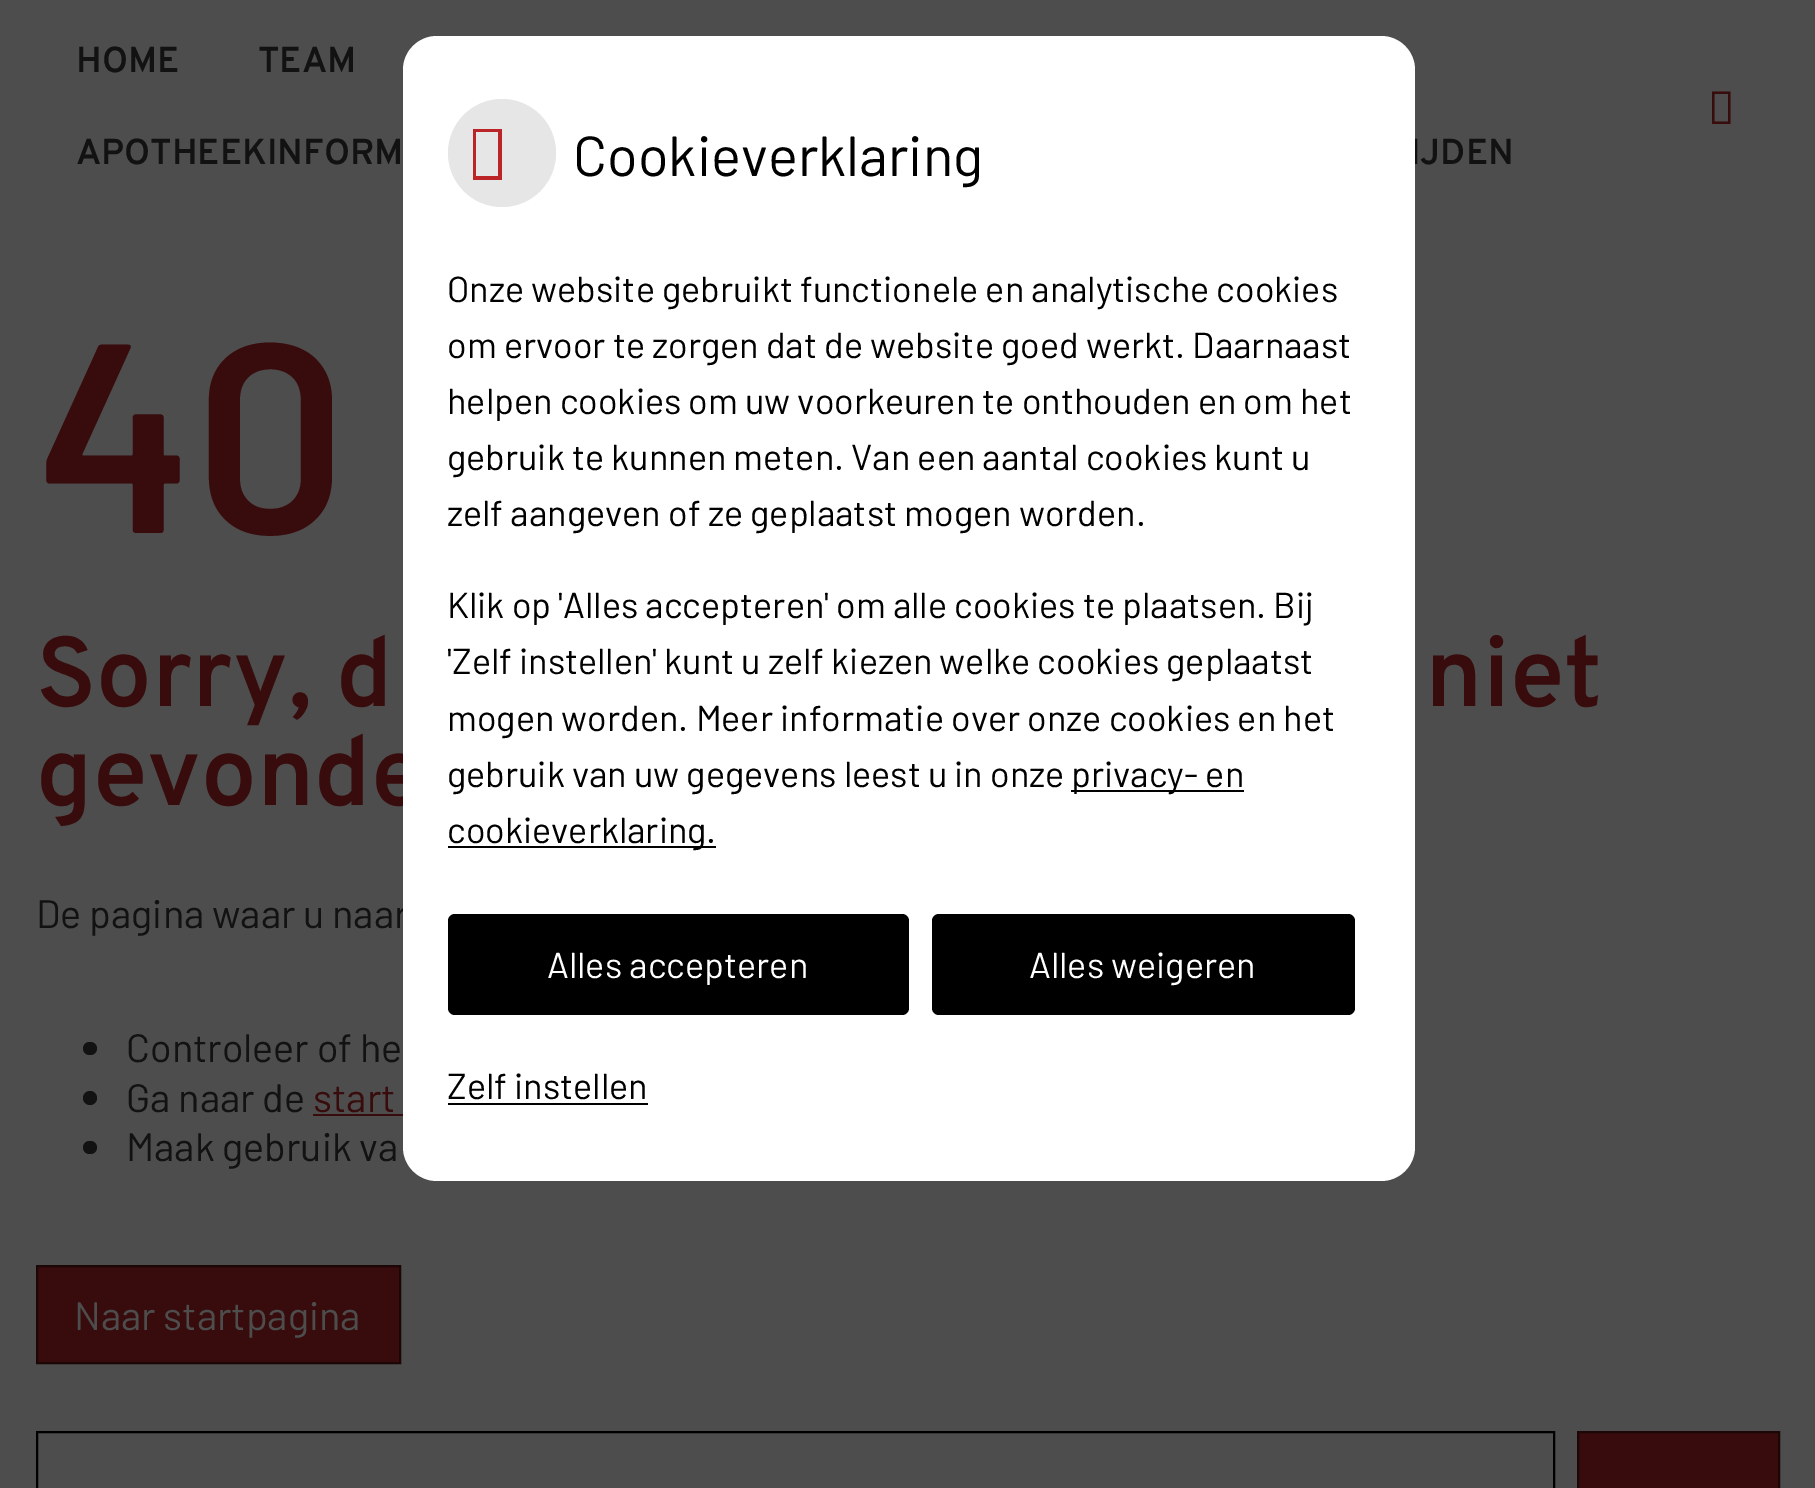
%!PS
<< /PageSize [1815 1488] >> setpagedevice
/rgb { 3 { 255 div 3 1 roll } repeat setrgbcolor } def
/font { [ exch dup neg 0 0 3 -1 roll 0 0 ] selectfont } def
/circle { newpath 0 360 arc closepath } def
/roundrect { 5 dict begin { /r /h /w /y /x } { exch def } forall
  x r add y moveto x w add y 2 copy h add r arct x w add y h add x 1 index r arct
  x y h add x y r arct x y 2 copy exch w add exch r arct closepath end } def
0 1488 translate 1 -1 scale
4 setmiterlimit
77 77 77 rgb
0 0 1815 1488 rectfill
56 11 12 rgb
1712 124 moveto 1712 91.5 lineto 1730.5 91.5 lineto 1730.5 124 lineto closepath 1714.5 121.5 moveto 1728 121.5 lineto 1728 94 lineto 1714.5 94 lineto closepath fill
18 18 18 rgb
83 1042 14 13 6.5 roundrect fill
90 1098 7 circle fill
56 11 12 rgb
313 1114 90 2 rectfill
18 18 18 rgb
83 1141 14 13 6.5 roundrect fill
56 11 12 rgb
37 1266 moveto 400 1266 lineto 400 1363 lineto 37 1363 lineto closepath gsave fill grestore
28 6 6 rgb
2 setlinewidth
stroke
0 0 0 rgb
37 1432 1517 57 rectstroke
56 11 12 rgb
1578 1432 moveto 1779 1432 lineto 1779 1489 lineto 1578 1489 lineto closepath gsave fill grestore
28 6 6 rgb
stroke
/Overpass-SemiBold 36 font
18 18 18 rgb
[
  [(HOME) 76 72]
  [(TEAM) 258 72]
  [(APOTHEEKINFORM) 76 164]
  [(IJDEN) 1410 164]
] { aload pop moveto show } forall
/Barlow-SemiBold 270 font
56 11 12 rgb
36 533 moveto (40) show
/Overpass-SemiBold 99 font
[
  [(Sorry, d) 36 706]
  [(niet) 1425 706]
  [(gevonde) 36 805]
] { aload pop moveto show } forall
/Barlow-Regular 39.5 font
18 18 18 rgb
36 928 moveto (De pagina waar u naar) show
255 255 255 rgb
403 36 1012 1145 34 roundrect fill
/Barlow-Regular 36 font
0 0 0 rgb
447 1099 moveto (Zelf instellen) show
448 1103 200 2 rectfill
932 914 423 101 7 roundrect fill
255 255 255 rgb
1029 978 moveto (Alles weigeren) show
0 0 0 rgb
448 914 461 101 7 roundrect fill
255 255 255 rgb
547 978 moveto (Alles accepteren) show
0 0 0 rgb
448 846 268 2 rectfill
447 843 moveto (cookieverklaring.) show
1071 790 173 2 rectfill
[
  [(privacy- en) 1071 787]
  [(gebruik van uw gegevens leest u in onze) 447 787]
  [(mogen worden. Meer informatie over onze cookies en het) 447 731]
  [('Zelf instellen' kunt u zelf kiezen welke cookies geplaatst) 447 674]
  [(Klik op 'Alles accepteren' om alle cookies te plaatsen. Bij) 447 618]
  [(zelf aangeven of ze geplaatst mogen worden.) 447 526]
  [(gebruik te kunnen meten. Van een aantal cookies kunt u) 447 470]
  [(helpen cookies om uw voorkeuren te onthouden en om het) 447 414]
  [(om ervoor te zorgen dat de website goed werkt. Daarnaast) 447 358]
  [(Onze website gebruikt functionele en analytische cookies) 447 302]
] { aload pop moveto show } forall
/Barlow-Regular 56.25 font
573 176 moveto (Cookieverklaring) show
230 230 230 rgb
502 153 54 circle fill
187 37 40 rgb
473 180 moveto 473 129 lineto 502 129 lineto 502 180 lineto closepath 476 176 moveto 498 176 lineto 498 132 lineto 476 132 lineto closepath fill
/Barlow-Regular 39.5 font
18 18 18 rgb
126 1062 moveto (Controleer of he) show
126 1112 moveto (Ga naar de) show
56 11 12 rgb
313 1112 moveto (start) show
18 18 18 rgb
126 1161 moveto (Maak gebruik va) show
77 77 77 rgb
74 1330 moveto (Naar startpagina) show
showpage
